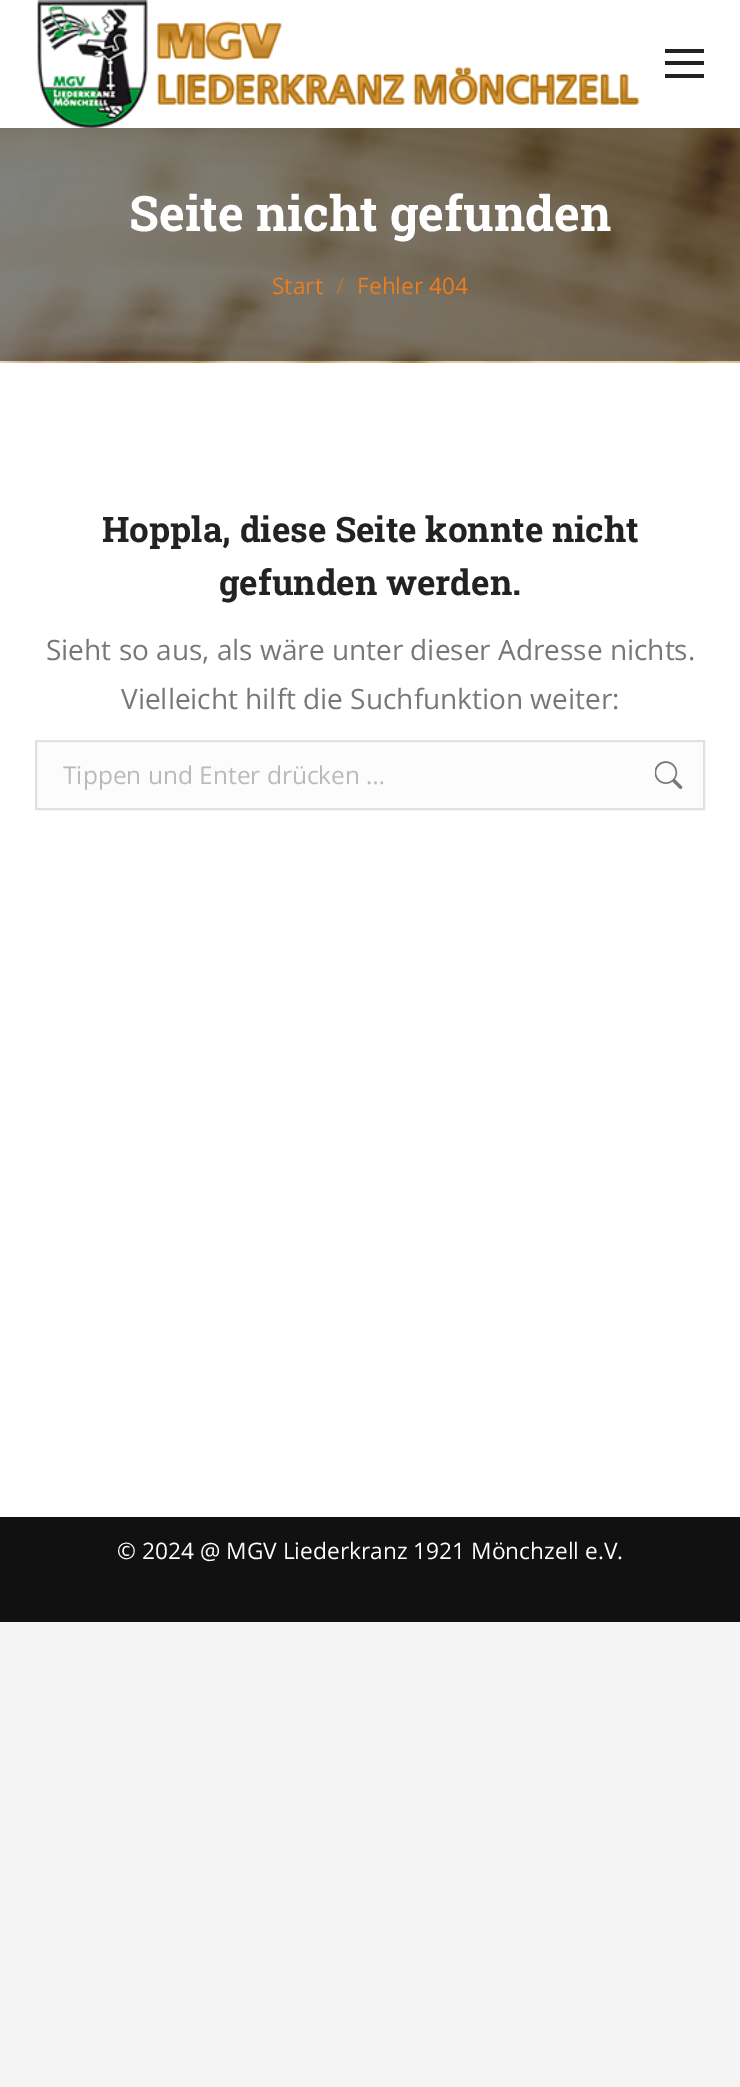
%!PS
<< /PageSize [740 2087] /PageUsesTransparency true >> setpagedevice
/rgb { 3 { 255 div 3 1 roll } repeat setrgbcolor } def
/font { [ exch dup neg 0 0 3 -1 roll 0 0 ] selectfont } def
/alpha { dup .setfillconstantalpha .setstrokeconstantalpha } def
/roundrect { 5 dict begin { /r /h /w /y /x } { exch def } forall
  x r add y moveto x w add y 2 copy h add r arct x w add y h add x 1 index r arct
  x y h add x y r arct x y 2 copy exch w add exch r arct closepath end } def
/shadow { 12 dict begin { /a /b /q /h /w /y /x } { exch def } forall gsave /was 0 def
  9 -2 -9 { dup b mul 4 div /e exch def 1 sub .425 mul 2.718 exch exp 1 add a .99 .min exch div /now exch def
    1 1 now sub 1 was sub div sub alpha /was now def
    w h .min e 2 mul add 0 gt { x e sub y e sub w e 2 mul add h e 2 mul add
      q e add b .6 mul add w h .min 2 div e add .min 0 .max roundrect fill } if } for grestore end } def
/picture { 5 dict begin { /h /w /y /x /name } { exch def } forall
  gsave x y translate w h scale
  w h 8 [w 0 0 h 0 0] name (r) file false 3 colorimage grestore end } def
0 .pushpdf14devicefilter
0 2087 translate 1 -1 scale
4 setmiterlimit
244 244 244 rgb
0 0 740 2087 rectfill
255 255 255 rgb
0 363 740 1154 rectfill
(img/2.rgb) 0 128 740 235 picture
0 0 0 rgb
-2 -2 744 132 0 13 0.07 shadow
255 255 255 rgb
0 0 740 128 rectfill
(img/1.rgb) 37 0 603 128 picture
[
  [665 49 39 4 34 34 34]
  [665 61 39 4 34 34 34]
  [665 74 39 4 34 34 34]
] { aload pop rgb rectfill } forall
252 252 252 rgb
36 741 moveto 704 741 lineto 704 809 lineto 36 809 lineto closepath gsave fill grestore
225 225 225 rgb
2 setlinewidth
stroke
(img/3.rgb) 655 761 28 28 picture
17 17 17 rgb
0 1517 740 105 rectfill
/RobotoSlab-Bold 49 font
255 255 255 rgb
129 231 moveto (Seite nicht gefunden) show
/OpenSans-Regular 22.75 font
233 125 31 rgb
272 294 moveto (Start) show
177 119 65 rgb
336 294 moveto (/) show
233 125 31 rgb
357 294 moveto (Fehler 404) show
/RobotoSlab-Bold 35 font
34 34 34 rgb
102 542 moveto (Hoppla, diese Seite konnte nicht) show
219 595 moveto (gefunden werden.) show
/OpenSans-Regular 28 font
119 119 119 rgb
46 660 moveto (Sieht so aus, als wäre unter dieser Adresse nichts.) show
121 709 moveto (Vielleicht hilft die Suchfunktion weiter:) show
/OpenSans-Regular 24.5 font
186 186 186 rgb
63 784 moveto (Tippen und Enter drücken …) show
/OpenSans-Regular 22.75 font
255 255 255 rgb
117 1559 moveto (© 2024 @ MGV Liederkranz 1921 Mönchzell e.V.) show
.poppdf14devicefilter showpage
